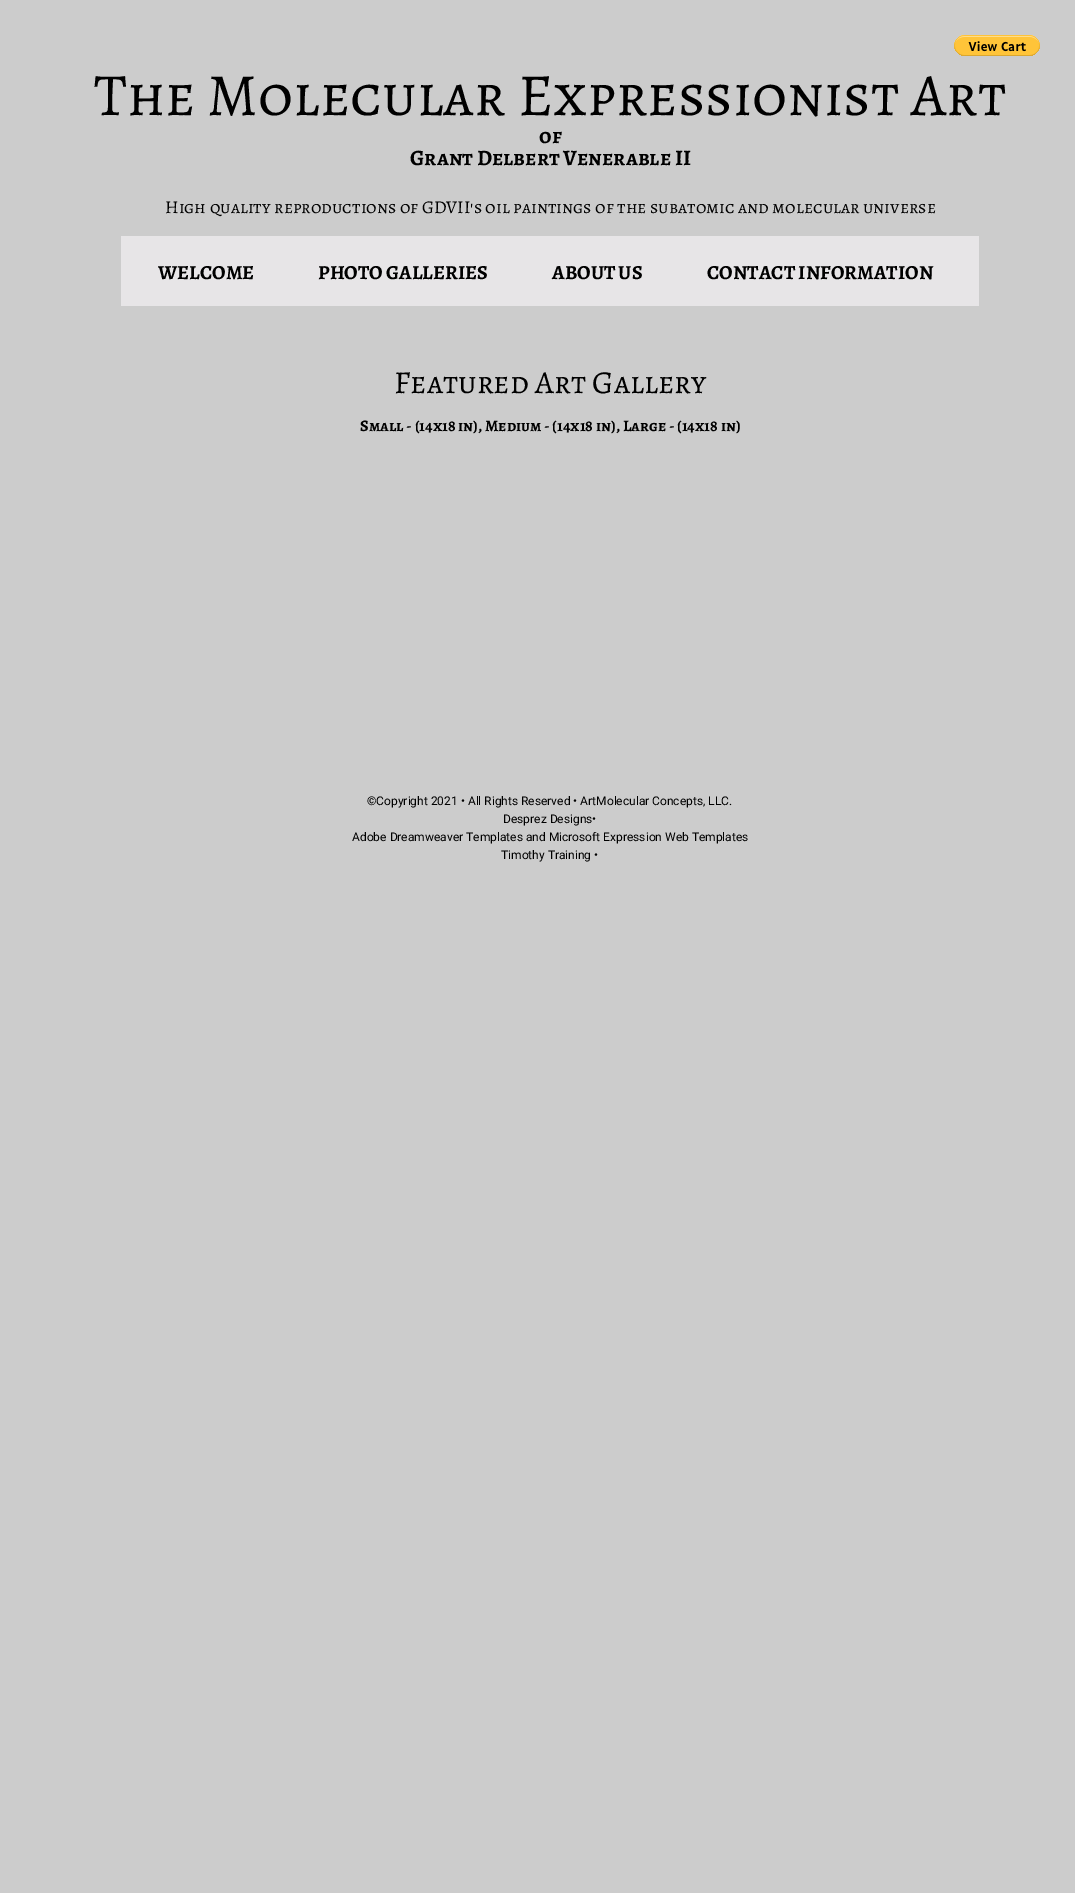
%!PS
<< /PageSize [1075 1893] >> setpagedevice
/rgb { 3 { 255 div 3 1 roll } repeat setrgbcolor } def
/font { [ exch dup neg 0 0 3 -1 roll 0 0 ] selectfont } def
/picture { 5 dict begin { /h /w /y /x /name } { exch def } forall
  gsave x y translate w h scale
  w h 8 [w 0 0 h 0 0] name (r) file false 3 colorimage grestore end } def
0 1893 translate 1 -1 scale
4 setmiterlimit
204 204 204 rgb
0 0 1075 1893 rectfill
(img/1.rgb) 954 35 86 21 picture
231 229 231 rgb
121 236 858 70 rectfill
/AlegreyaSC-Regular 60 font
0 0 0 rgb
94 115 moveto (The Molecular Expressionist Art) show
/AlegreyaSC-Bold 22 font
539 143 moveto (of) show
410 165 moveto (Grant Delbert Venerable II) show
/AlegreyaSC-Regular 18 font
165 213 moveto (High quality reproductions of GDVII's oil paintings of the subatomic and molecular universe) show
/AlegreyaSC-Bold 20 font
[
  [(WELCOME) 158 279]
  [(PHOTO GALLERIES) 318 279]
  [(ABOUT US) 552 279]
  [(CONTACT INFORMATION) 707 279]
] { aload pop moveto show } forall
/AlegreyaSC-Regular 32 font
394 393 moveto (Featured Art Gallery) show
/AlegreyaSC-Bold 16 font
360 431 moveto (Small - \(14x18 in\), Medium - \(14x18 in\), Large - \(14x18 in\)) show
/Roboto-Regular 12 font
[
  [(©Copyright 2021 • All Rights Reserved • ArtMolecular Concepts, LLC.) 367 805]
  [(Desprez Designs•) 503 823]
  [(Adobe Dreamweaver Templates and Microsoft Expression Web Templates) 352 841]
  [(Timothy Training •) 501 859]
] { aload pop moveto show } forall
showpage
